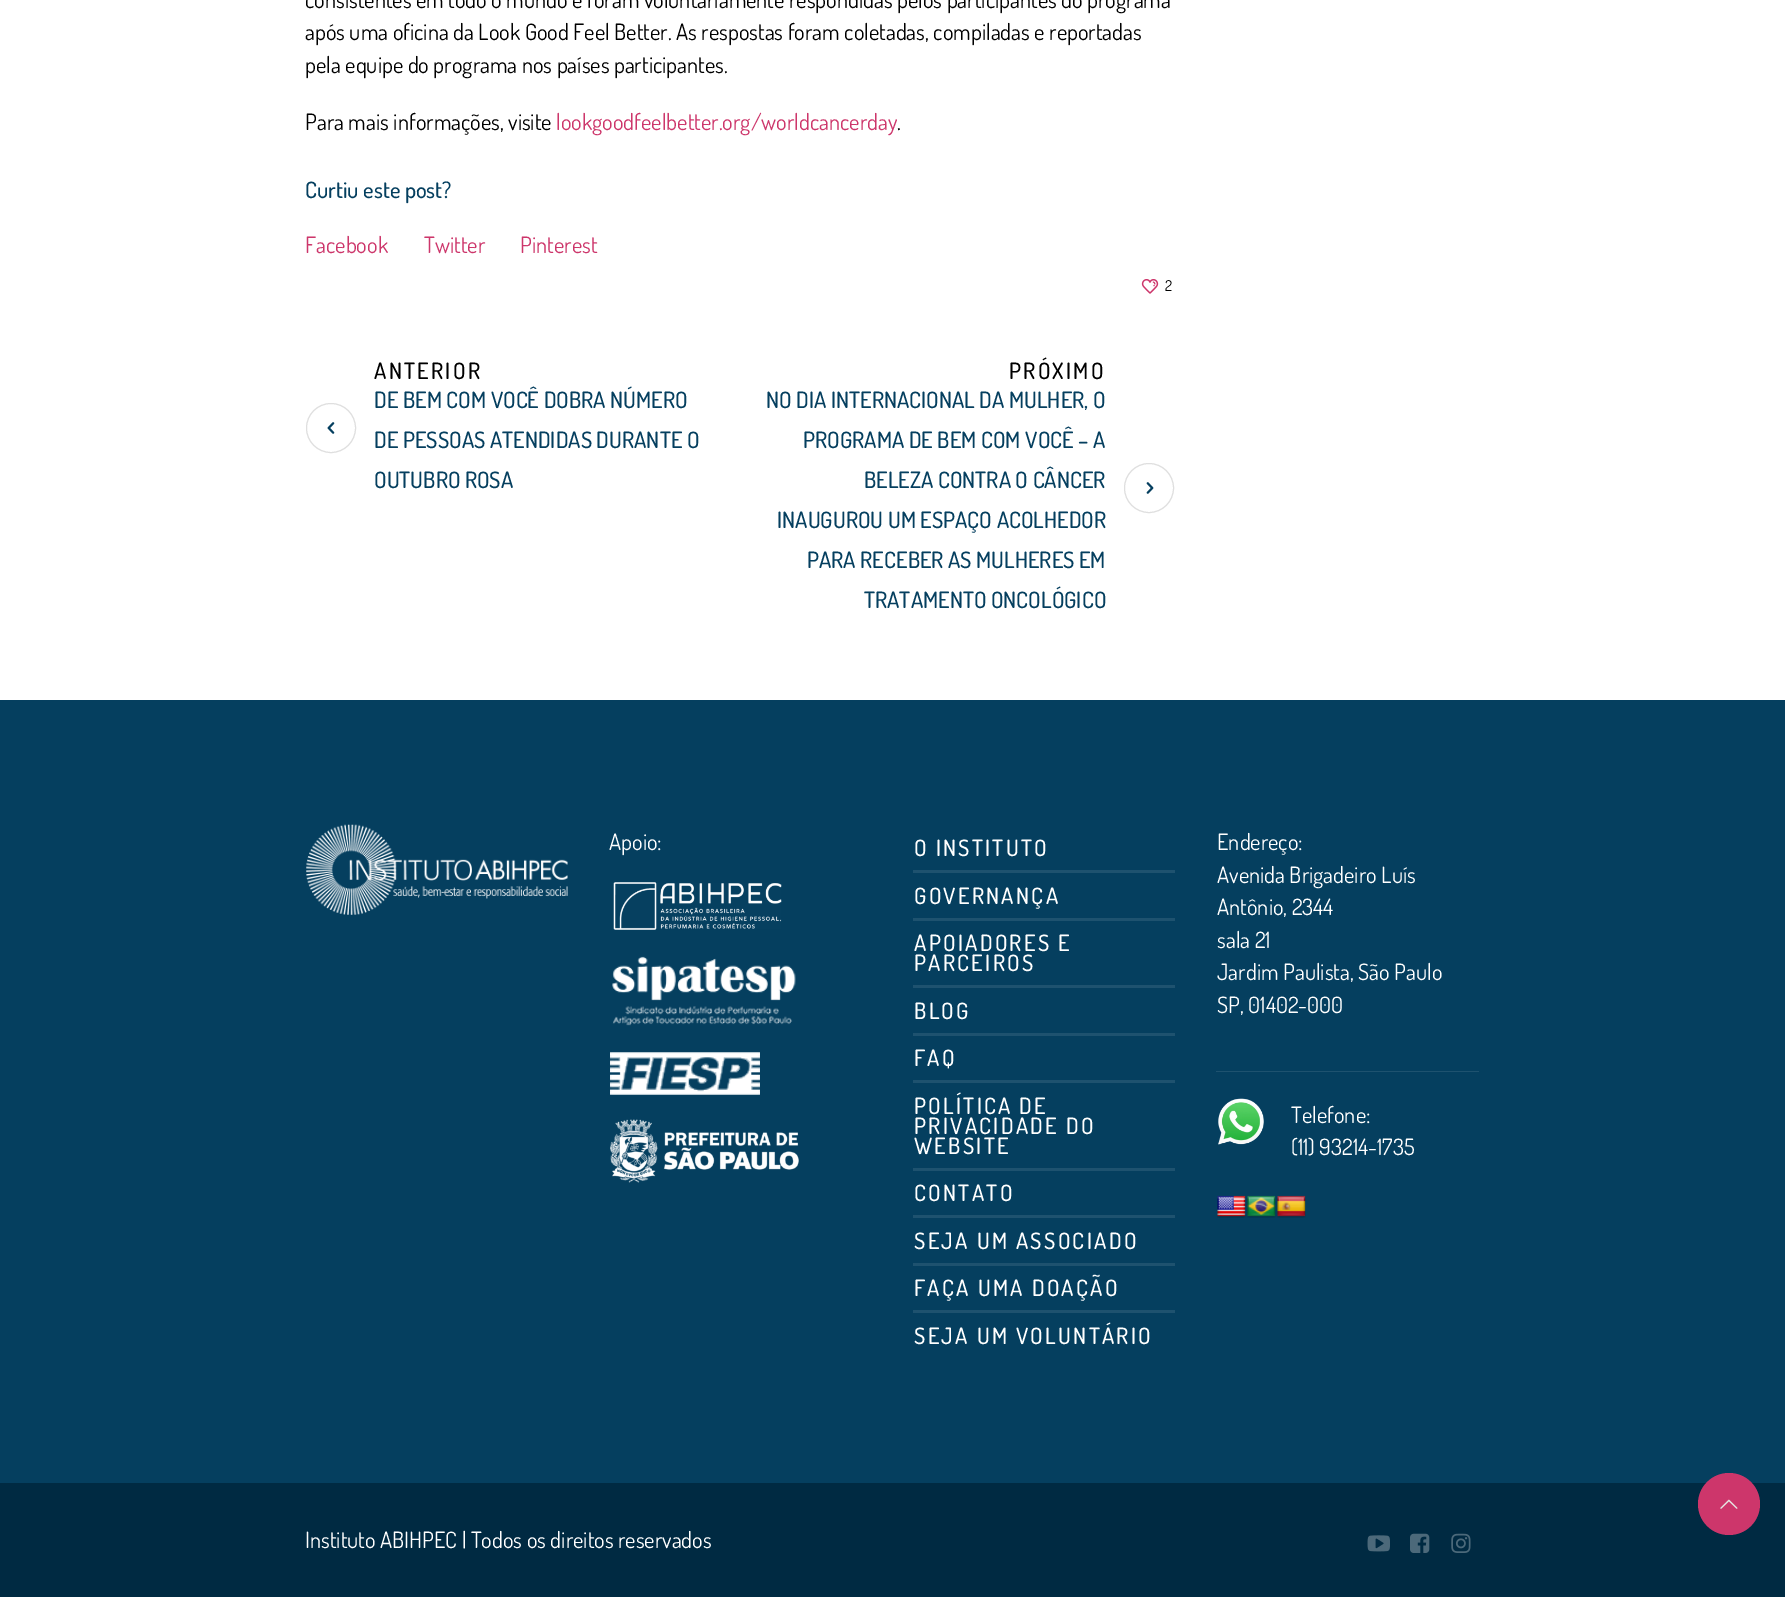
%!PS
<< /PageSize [1785 1597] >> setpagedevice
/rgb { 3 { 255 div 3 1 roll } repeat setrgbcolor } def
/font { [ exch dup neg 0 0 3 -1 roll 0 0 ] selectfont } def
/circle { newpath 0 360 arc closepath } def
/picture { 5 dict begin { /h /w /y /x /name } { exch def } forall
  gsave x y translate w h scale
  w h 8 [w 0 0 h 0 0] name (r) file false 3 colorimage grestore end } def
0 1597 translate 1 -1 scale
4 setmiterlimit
255 255 255 rgb
0 0 1785 1597 rectfill
(img/1.rgb) 1141 279 18 15 picture
223 223 223 rgb
331 428 24.5 circle stroke
(img/2.rgb) 327 422 8 12 picture
1149 488 24.5 circle stroke
(img/3.rgb) 1146 482 8 12 picture
5 63 95 rgb
0 700 1785 783 rectfill
(img/4.rgb) 306 824 262 91 picture
(img/5.rgb) 613 882 169 48 picture
(img/6.rgb) 612 956 184 70 picture
(img/7.rgb) 610 1052 150 43 picture
(img/8.rgb) 610 1119 189 64 picture
[
  [913 870 262 3 30 82 111]
  [913 918 262 3 30 82 111]
  [913 985 262 3 30 82 111]
  [913 1033 262 3 30 82 111]
  [913 1080 262 3 30 82 111]
  [913 1168 262 3 30 82 111]
  [913 1215 262 3 30 82 111]
  [913 1263 262 3 30 82 111]
  [913 1310 262 3 30 82 111]
  [1216 1071 263 1 30 82 111]
] { aload pop rgb rectfill } forall
(img/9.rgb) 1218 1098 46 47 picture
(img/10.rgb) 1217 1195 29 23 picture
(img/11.rgb) 1246 1195 30 23 picture
(img/12.rgb) 1276 1195 30 23 picture
0 42 66 rgb
0 1483 1785 114 rectfill
205 54 107 rgb
1729 1504 31 circle fill
(img/13.rgb) 1720 1499 18 10 picture
(img/14.rgb) 1367 1535 23 17 picture
(img/15.rgb) 1410 1533 20 20 picture
(img/16.rgb) 1451 1533 20 20 picture
/Dosis-Regular 22.5 font
0 0 0 rgb
[
  [(consistentes em todo o mundo e foram voluntariamente respondidas pelos participantes do programa) 305 8]
  [(após uma oficina da Look Good Feel Better. As respostas foram coletadas, compiladas e reportadas) 305 40]
  [(pela equipe do programa nos países participantes.) 305 73]
  [(Para mais informações, visite) 305 130]
] { aload pop moveto show } forall
205 54 107 rgb
556 130 moveto (lookgoodfeelbetter.org/worldcancerday) show
0 0 0 rgb
897 130 moveto (.) show
/Dosis-Medium 22.5 font
5 63 95 rgb
305 198 moveto (Curtiu este post?) show
/Dosis-Regular 22.5 font
205 54 107 rgb
[
  [(Facebook) 305 253]
  [(Twitter) 424 253]
  [(Pinterest) 520 253]
] { aload pop moveto show } forall
/Dosis-Regular 15 font
0 0 0 rgb
1165 291 moveto 2 0 (2) ashow
/Dosis-Medium 22.5 font
374 379 moveto 2.25 0 (ANTERIOR) ashow
5 63 95 rgb
[
  [(DE BEM COM VOCÊ DOBRA NÚMERO) 374 408]
  [(DE PESSOAS ATENDIDAS DURANTE O) 374 448]
  [(OUTUBRO ROSA) 374 488]
] { aload pop moveto show } forall
0 0 0 rgb
1009 379 moveto 2.25 0 (PRÓXIMO) ashow
5 63 95 rgb
[
  [(NO DIA INTERNACIONAL DA MULHER, O) 766 408]
  [(PROGRAMA DE BEM COM VOCÊ – A) 803 448]
  [(BELEZA CONTRA O CÂNCER) 864 488]
  [(INAUGUROU UM ESPAÇO ACOLHEDOR) 777 528]
  [(PARA RECEBER AS MULHERES EM) 807 568]
  [(TRATAMENTO ONCOLÓGICO) 864 608]
] { aload pop moveto show } forall
/Dosis-Regular 22.5 font
255 255 255 rgb
609 850 moveto (Apoio:) show
/Dosis-Medium 22.5 font
914 856 moveto 2.25 0 (O INSTITUTO) ashow
914 904 moveto 2.25 0 (GOVERNANÇA) ashow
914 951 moveto 2.25 0 (APOIADORES E) ashow
914 971 moveto 2.25 0 (PARCEIROS) ashow
914 1019 moveto 2.25 0 (BLOG) ashow
914 1066 moveto 2.25 0 (FAQ) ashow
914 1114 moveto 2.25 0 (POLÍTICA DE) ashow
914 1134 moveto 2.25 0 (PRIVACIDADE DO) ashow
914 1154 moveto 2.25 0 (WEBSITE) ashow
914 1201 moveto 2.25 0 (CONTATO) ashow
914 1249 moveto 2.25 0 (SEJA UM ASSOCIADO) ashow
914 1296 moveto 2.25 0 (FAÇA UMA DOAÇÃO) ashow
914 1344 moveto 2.25 0 (SEJA UM VOLUNTÁRIO) ashow
/Dosis-Regular 22.5 font
[
  [(Endereço:) 1217 850]
  [(Avenida Brigadeiro Luís) 1217 883]
  [(Antônio, 2344) 1217 915]
  [(sala 21) 1217 948]
  [(Jardim Paulista, São Paulo) 1217 980]
  [(SP, 01402-000) 1217 1013]
  [(Telefone:) 1291 1123]
  [(\(11\) 93214-1735) 1291 1155]
  [(Instituto ABIHPEC | Todos os direitos reservados) 305 1548]
] { aload pop moveto show } forall
showpage
